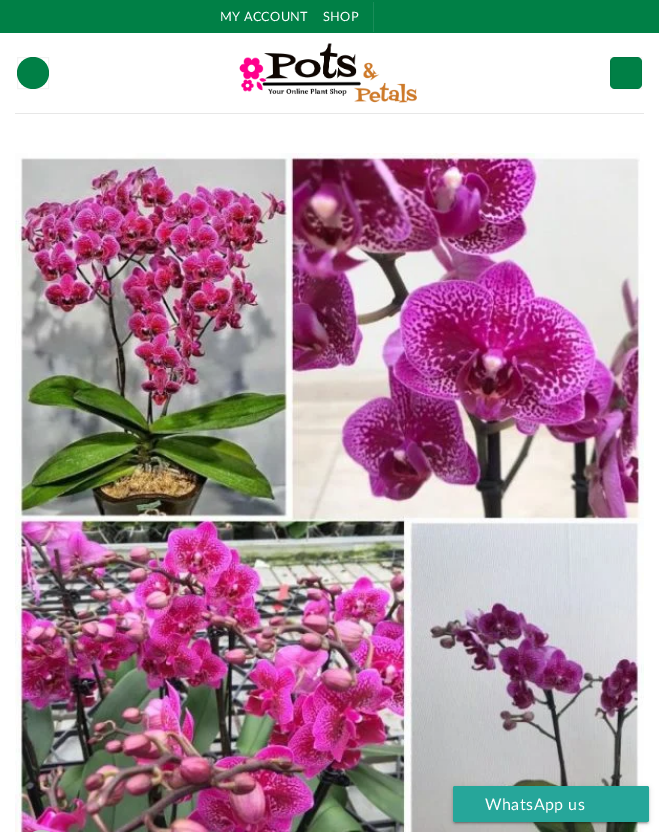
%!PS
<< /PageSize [659 832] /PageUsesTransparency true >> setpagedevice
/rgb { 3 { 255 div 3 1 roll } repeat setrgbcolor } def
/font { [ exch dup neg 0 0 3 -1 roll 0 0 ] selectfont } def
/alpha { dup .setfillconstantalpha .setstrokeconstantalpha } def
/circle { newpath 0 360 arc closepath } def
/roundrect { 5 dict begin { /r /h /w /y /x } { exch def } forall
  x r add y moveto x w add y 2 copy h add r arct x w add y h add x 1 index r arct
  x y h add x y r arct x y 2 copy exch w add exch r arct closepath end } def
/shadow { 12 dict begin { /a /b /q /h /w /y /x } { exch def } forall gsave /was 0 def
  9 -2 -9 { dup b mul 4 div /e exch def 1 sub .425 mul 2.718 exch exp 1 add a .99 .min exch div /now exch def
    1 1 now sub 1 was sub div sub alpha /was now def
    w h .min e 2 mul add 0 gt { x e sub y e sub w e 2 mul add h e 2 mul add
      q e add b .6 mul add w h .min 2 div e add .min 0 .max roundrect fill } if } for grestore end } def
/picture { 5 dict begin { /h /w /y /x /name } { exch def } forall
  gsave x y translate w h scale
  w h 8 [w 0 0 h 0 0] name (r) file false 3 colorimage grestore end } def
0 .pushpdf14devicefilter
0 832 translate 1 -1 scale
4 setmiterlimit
255 255 255 rgb
0 0 659 832 rectfill
0 128 70 rgb
0 0 659 33 rectfill
26 141 89 rgb
373 2 1 30 rectfill
0 128 70 rgb
33 73 16 circle fill
0.05 alpha
0 0 0 rgb
17.5 57.5 31 31 rectstroke
1 alpha
(img/1.rgb) 239 43 178 60 picture
0 128 70 rgb
610 57 32 32 5 roundrect fill
0.05 alpha
0 0 0 rgb
610.5 57.5 31 31 rectstroke
1 alpha
231 231 231 rgb
15 113 629 1 rectfill
(img/2.rgb) 15 153 629 679 picture
192 192 192 rgb
2 setlinewidth
23 831 37 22 18.5 roundrect stroke
0 0 0 rgb
455 791 192 32 0 0.5 0.2 shadow
453 787 196 36 2 2.5 0.12 shadow
453 788 196 36 2 1 0.14 shadow
38 166 154 rgb
453 786 196 36 2 roundrect fill
/Lato-Regular 12.75 font
255 255 255 rgb
220 21 moveto 0.25 0 (MY ACCOUNT) ashow
323 21 moveto 0.25 0 (SHOP) ashow
/Lato-Regular 16 font
485 810 moveto 0.5 0 (WhatsApp us) ashow
.poppdf14devicefilter showpage
